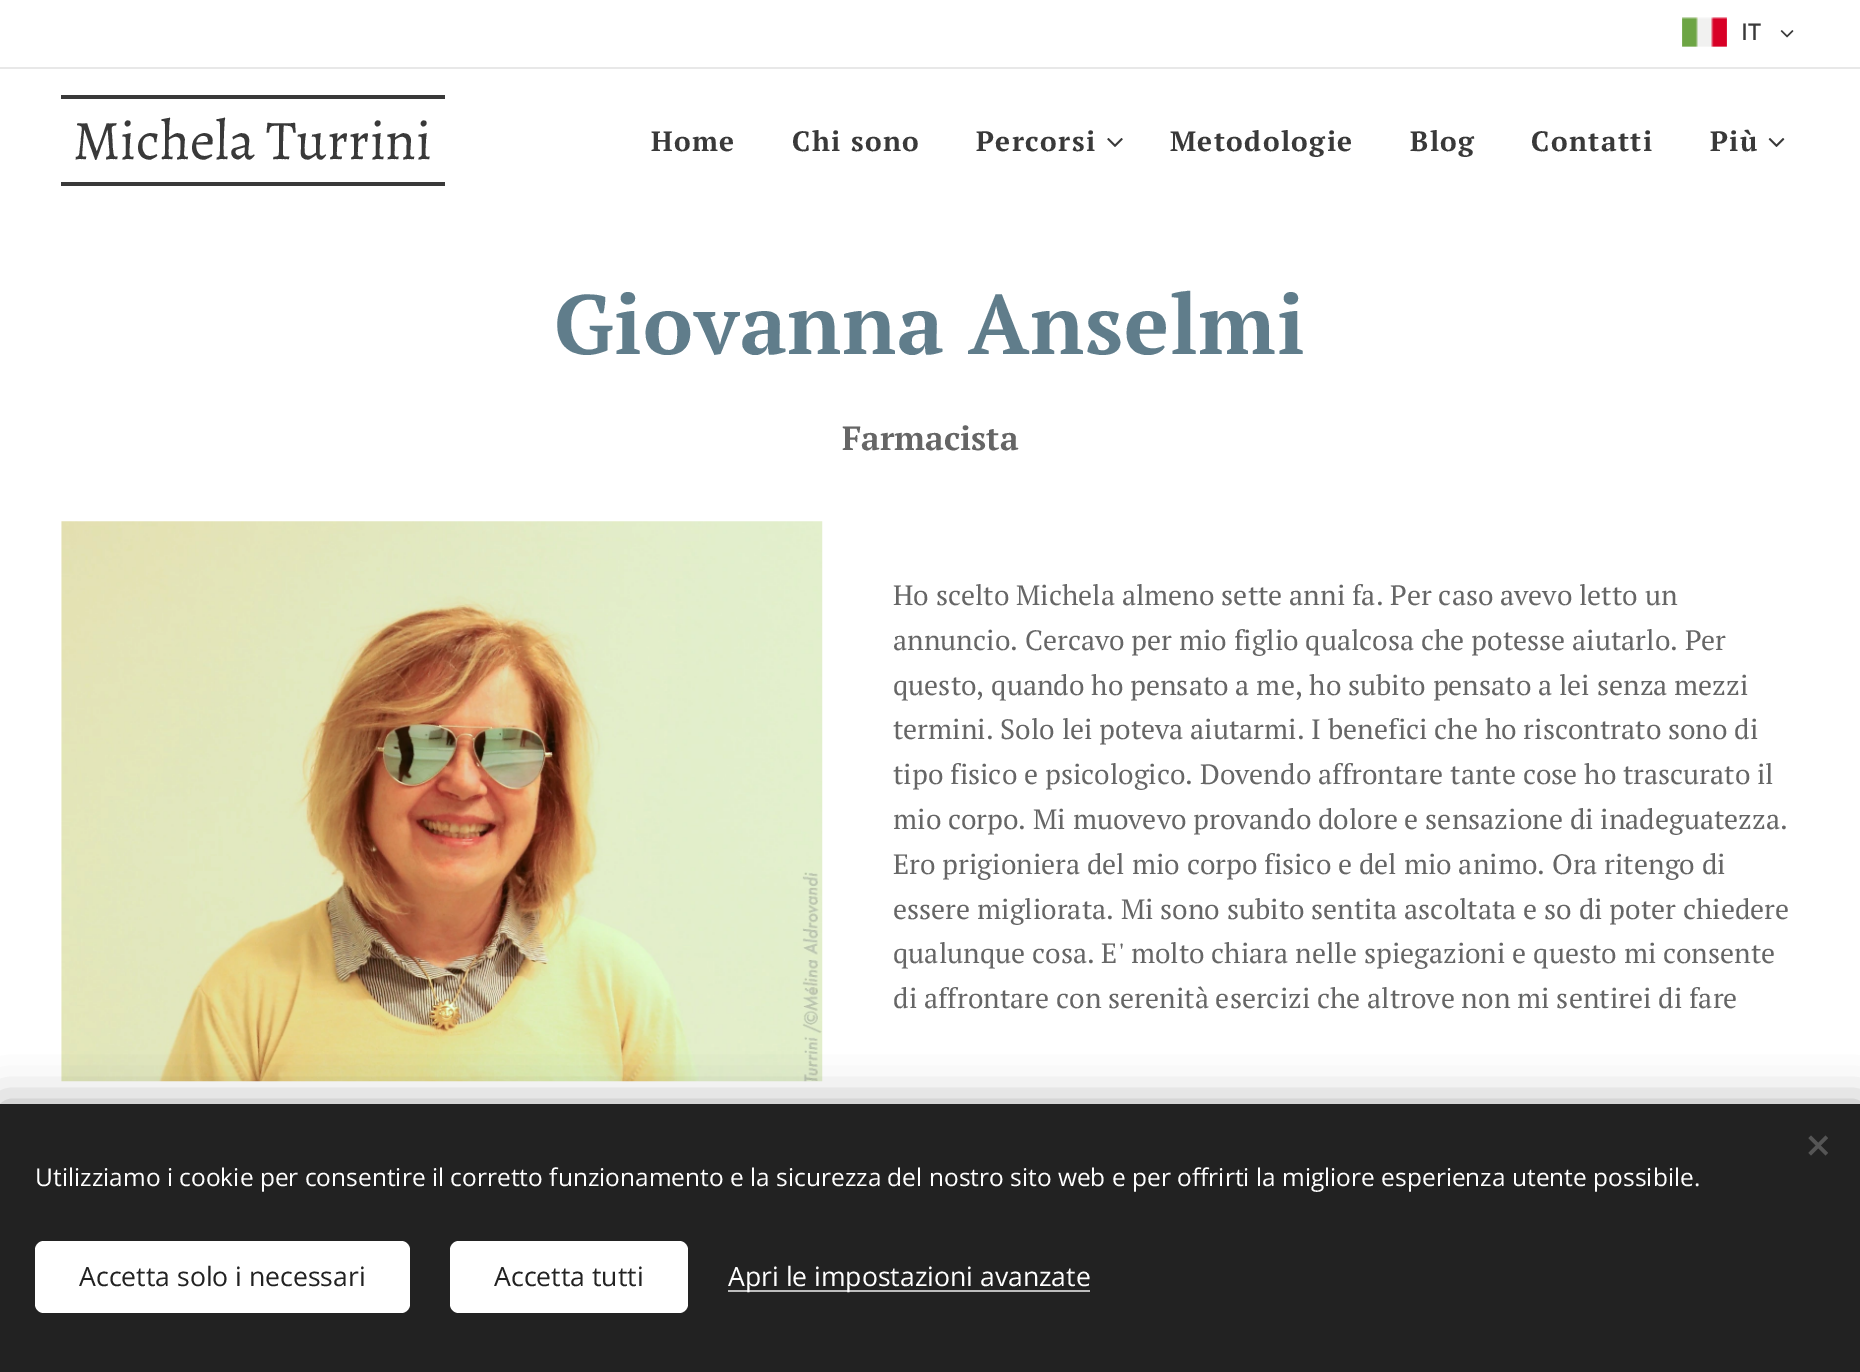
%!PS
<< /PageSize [1860 1372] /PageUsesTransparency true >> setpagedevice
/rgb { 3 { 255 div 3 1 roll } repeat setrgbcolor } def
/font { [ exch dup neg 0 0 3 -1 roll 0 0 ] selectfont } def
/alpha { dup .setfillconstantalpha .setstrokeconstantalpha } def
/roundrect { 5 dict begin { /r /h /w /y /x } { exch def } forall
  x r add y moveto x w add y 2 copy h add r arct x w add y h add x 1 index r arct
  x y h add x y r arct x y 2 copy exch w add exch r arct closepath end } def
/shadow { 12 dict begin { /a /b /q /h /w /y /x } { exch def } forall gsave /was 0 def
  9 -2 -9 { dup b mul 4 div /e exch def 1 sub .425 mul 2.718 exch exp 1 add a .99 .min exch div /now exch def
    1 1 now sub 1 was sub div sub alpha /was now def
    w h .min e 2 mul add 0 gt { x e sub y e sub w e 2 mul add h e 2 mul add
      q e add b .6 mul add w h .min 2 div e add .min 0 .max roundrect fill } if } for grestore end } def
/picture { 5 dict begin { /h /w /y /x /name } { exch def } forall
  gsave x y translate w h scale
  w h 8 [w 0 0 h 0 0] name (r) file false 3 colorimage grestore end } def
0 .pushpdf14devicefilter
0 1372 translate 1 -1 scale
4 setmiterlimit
255 255 255 rgb
0 0 1860 1372 rectfill
(img/1.rgb) 1682 17 45 30 picture
(img/2.rgb) 1780 30 14 8 picture
[
  [0 67 1860 2 232 232 232]
  [61 95 384 4 57 57 57]
  [61 182 384 4 57 57 57]
] { aload pop rgb rectfill } forall
(img/3.rgb) 1107 138 16 9 picture
(img/4.rgb) 1768 138 17 9 picture
(img/5.rgb) 61 521 762 561 picture
0 0 0 rgb
0 1104 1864 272 0 22 0.33 shadow
34 34 34 rgb
0 1104 1860 268 rectfill
85 85 85 rgb
1808.5 1153 moveto 1825.5 1135.5 lineto 1828 1138 lineto 1811 1155.5 lineto closepath fill
1811 1135.5 moveto 1828 1153 lineto 1825.5 1155.5 lineto 1808.5 1138 lineto closepath fill
255 255 255 rgb
35 1241 375 72 9 roundrect fill
450 1241 238 72 9 roundrect fill
189 189 189 rgb
728 1290 362 2 rectfill
/OpenSans-SemiBold 23 font
57 57 57 rgb
1741 40 moveto (IT) show
/Alegreya-Regular 56 font
73 159 moveto (Michela Turrini) show
/PTSerif-Bold 28 font
651 151 moveto 1.4 0 (Home) ashow
792 151 moveto 1.4 0 (Chi sono) ashow
976 151 moveto 1.4 0 (Percorsi) ashow
1170 151 moveto 1.4 0 (Metodologie) ashow
1410 151 moveto 1.4 0 (Blog) ashow
1531 151 moveto 1.4 0 (Contatti) ashow
1710 151 moveto 1.4 0 (Più) ashow
/PTSerif-Bold 84 font
96 125 139 rgb
554 354 moveto 0.8 0 (Giovanna Anselmi) ashow
/PTSerif-Bold 33.5 font
102 102 102 rgb
842 450 moveto (Farmacista) show
/PTSerif-Regular 28 font
[
  [(Ho scelto Michela almeno sette anni fa. Per caso avevo letto un) 893 605]
  [(annuncio. Cercavo per mio figlio qualcosa che potesse aiutarlo. Per) 893 650]
  [(questo, quando ho pensato a me, ho subito pensato a lei senza mezzi) 893 695]
  [(termini. Solo lei poteva aiutarmi. I benefici che ho riscontrato sono di) 893 739]
  [(tipo fisico e psicologico. Dovendo affrontare tante cose ho trascurato il) 893 784]
  [(mio corpo. Mi muovevo provando dolore e sensazione di inadeguatezza.) 893 829]
  [(Ero prigioniera del mio corpo fisico e del mio animo. Ora ritengo di) 893 874]
  [(essere migliorata. Mi sono subito sentita ascoltata e so di poter chiedere) 893 919]
  [(qualunque cosa. E' molto chiara nelle spiegazioni e questo mi consente) 893 963]
  [(di affrontare con serenità esercizi che altrove non mi sentirei di fare) 893 1008]
] { aload pop moveto show } forall
/OpenSans-Regular 24.5 font
255 255 255 rgb
35 1186 moveto (Utilizziamo i cookie per consentire il corretto funzionamento e la sicurezza del nostro sito web e per offrirti la migliore esperienza utente possibile.) show
/OpenSans-Regular 26.6 font
34 34 34 rgb
79 1286 moveto (Accetta solo i necessari) show
494 1286 moveto (Accetta tutti) show
255 255 255 rgb
728 1286 moveto (Apri le impostazioni avanzate) show
.poppdf14devicefilter showpage
